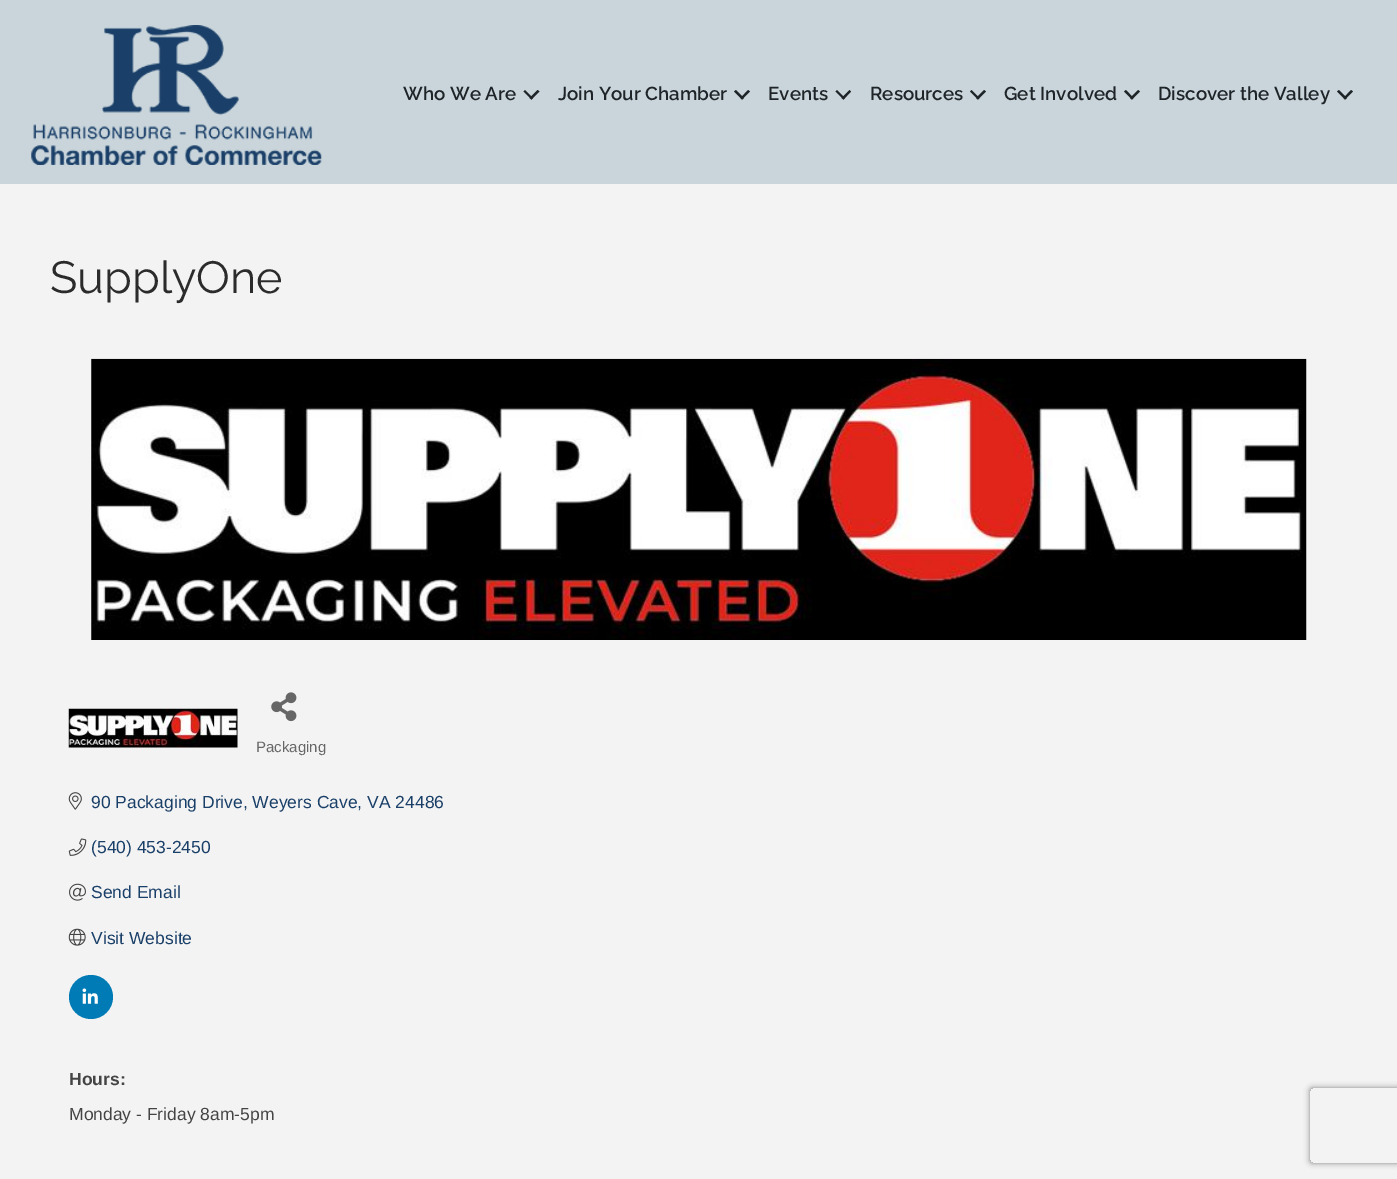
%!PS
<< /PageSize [1397 1179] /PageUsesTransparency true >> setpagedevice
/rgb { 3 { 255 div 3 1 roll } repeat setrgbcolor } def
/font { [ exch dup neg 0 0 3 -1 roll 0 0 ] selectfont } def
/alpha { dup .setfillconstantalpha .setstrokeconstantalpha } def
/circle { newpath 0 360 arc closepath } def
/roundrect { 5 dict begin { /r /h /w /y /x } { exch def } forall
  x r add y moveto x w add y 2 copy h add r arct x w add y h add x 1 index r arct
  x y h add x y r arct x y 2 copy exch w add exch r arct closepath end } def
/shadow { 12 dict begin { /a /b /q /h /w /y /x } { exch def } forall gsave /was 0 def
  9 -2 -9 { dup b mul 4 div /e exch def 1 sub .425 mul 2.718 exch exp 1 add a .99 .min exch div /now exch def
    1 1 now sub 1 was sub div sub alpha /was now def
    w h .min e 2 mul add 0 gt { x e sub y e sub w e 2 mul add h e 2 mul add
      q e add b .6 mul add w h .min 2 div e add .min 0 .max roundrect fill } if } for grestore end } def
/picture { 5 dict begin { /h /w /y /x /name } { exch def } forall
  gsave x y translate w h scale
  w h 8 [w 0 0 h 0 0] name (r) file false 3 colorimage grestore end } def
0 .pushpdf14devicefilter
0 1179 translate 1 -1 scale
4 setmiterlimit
201 213 219 rgb
0 0 1397 1179 rectfill
(img/1.rgb) 31 25 291 140 picture
30 36 40 rgb
537.5 90 moveto 539.5 91.5 lineto 531.5 99.5 lineto 529.5 98 lineto closepath fill
525 90 moveto 533 98 lineto 531.5 99.5 lineto 523.5 91.5 lineto closepath fill
748 90 moveto 750 91.5 lineto 742 99.5 lineto 740.5 98 lineto closepath fill
736 90 moveto 744 98 lineto 742 99.5 lineto 734 91.5 lineto closepath fill
849.5 90 moveto 851 91.5 lineto 843.5 99.5 lineto 841.5 98 lineto closepath fill
837 90 moveto 845 98 lineto 843.5 99.5 lineto 835.5 91.5 lineto closepath fill
984 90 moveto 986 91.5 lineto 978 99.5 lineto 976 98 lineto closepath fill
971.5 90 moveto 979.5 98 lineto 978 99.5 lineto 970 91.5 lineto closepath fill
1138 90 moveto 1140 91.5 lineto 1132 99.5 lineto 1130 98 lineto closepath fill
1126 90 moveto 1133.5 98 lineto 1132 99.5 lineto 1124 91.5 lineto closepath fill
1351 90 moveto 1353 91.5 lineto 1345 99.5 lineto 1343.5 98 lineto closepath fill
1339 90 moveto 1347 98 lineto 1345 99.5 lineto 1337 91.5 lineto closepath fill
243 243 243 rgb
0 184 1397 995 rectfill
(img/2.rgb) 91 358 1216 282 picture
(img/3.rgb) 68 708 170 40 picture
(img/4.rgb) 271 692 26 30 picture
(img/5.rgb) 68 792 14 18 picture
(img/6.rgb) 68 838 19 18 picture
(img/7.rgb) 69 883 17 18 picture
(img/8.rgb) 68 928 18 18 picture
0 123 181 rgb
91 997 22 circle fill
(img/9.rgb) 82 988 16 16 picture
gsave
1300 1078 moveto 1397 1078 lineto 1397 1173 lineto 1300 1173 lineto closepath 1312.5 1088 moveto 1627.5 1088 lineto 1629 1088 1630 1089 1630 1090.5 curveto 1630 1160.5 lineto 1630 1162 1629 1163 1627.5 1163 curveto 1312.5 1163 lineto 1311 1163 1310 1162 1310 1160.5 curveto 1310 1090.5 lineto 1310 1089 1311 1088 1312.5 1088 curveto closepath eoclip newpath
128 128 128 rgb
1310 1088 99 75 2.5 3 1 shadow
grestore
/Raleway-SemiBold 18.75 font
30 36 40 rgb
[
  [(Who We Are) 403 100]
  [(Join Your Chamber) 558 100]
  [(Events) 768 100]
  [(Resources) 870 100]
  [(Get Involved) 1004 100]
  [(Discover the Valley) 1158 100]
] { aload pop moveto show } forall
/Raleway-Regular 45 font
43 43 43 rgb
50 293 moveto (SupplyOne) show
/LiberationSans-Regular 15 font
103 103 103 rgb
256 752 moveto (Packaging) show
/LiberationSans-Regular 17.5 font
26 63 104 rgb
[
  [(90 Packaging Drive, Weyers Cave, VA 24486) 91 808]
  [(\(540\) 453-2450) 91 853]
  [(Send Email) 91 898]
  [(Visit Website) 91 944]
] { aload pop moveto show } forall
/LiberationSans-Bold 17.5 font
68 68 68 rgb
69 1085 moveto (Hours:) show
/LiberationSans-Regular 17.5 font
69 1120 moveto (Monday - Friday 8am-5pm) show
.poppdf14devicefilter showpage
